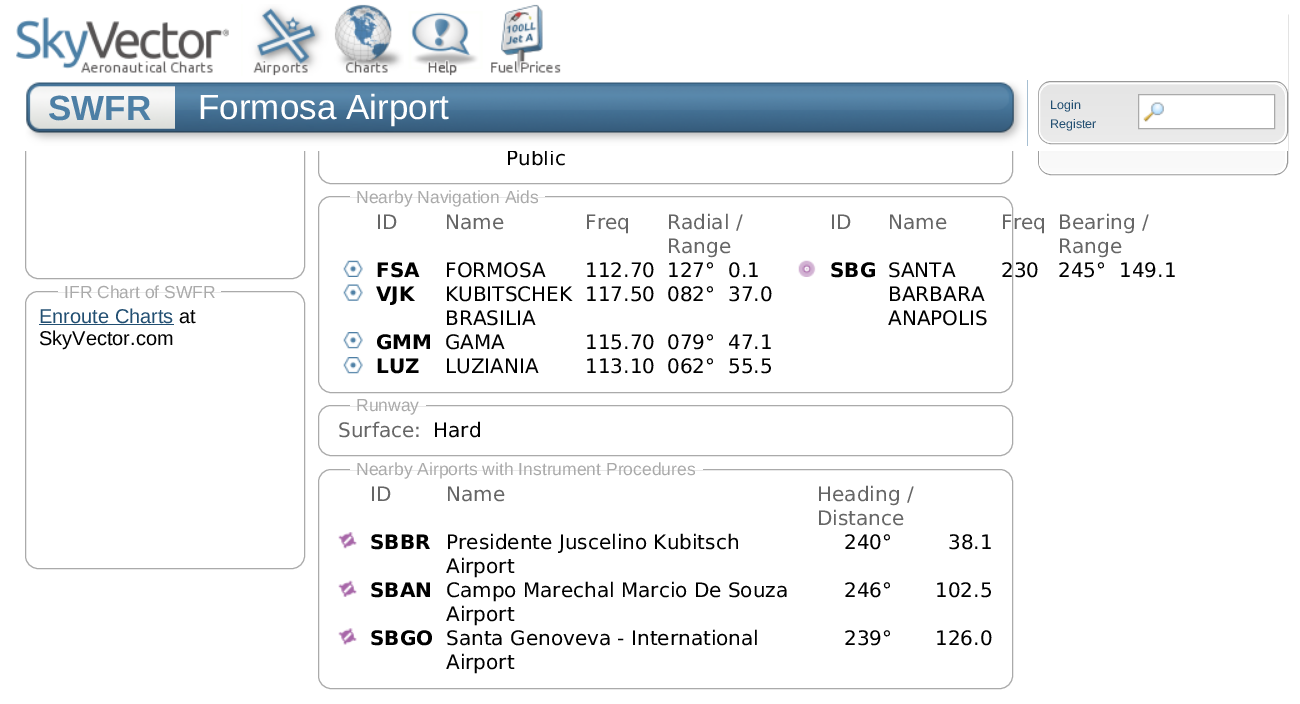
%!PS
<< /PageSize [1300 704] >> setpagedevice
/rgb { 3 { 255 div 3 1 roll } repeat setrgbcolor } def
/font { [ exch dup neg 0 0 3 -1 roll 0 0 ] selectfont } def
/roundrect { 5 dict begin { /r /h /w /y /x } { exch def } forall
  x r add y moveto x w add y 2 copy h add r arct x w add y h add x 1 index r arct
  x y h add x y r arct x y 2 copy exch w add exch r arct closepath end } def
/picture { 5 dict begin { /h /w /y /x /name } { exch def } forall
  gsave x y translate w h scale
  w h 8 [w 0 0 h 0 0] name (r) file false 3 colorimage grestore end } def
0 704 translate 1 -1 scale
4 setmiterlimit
255 255 255 rgb
0 0 1300 704 rectfill
153 153 153 rgb
1038.5 3.5 249 171 12.5 roundrect stroke
(img/6.rgb) 1038 151 248 22 picture
255 255 255 rgb
1039.5 4.5 246 169 12.5 roundrect stroke
170 170 170 rgb
25.5 1.5 279 277 12.5 roundrect stroke
25.5 291.5 279 277 12.5 roundrect stroke
255 255 255 rgb
58 291 163 1 rectfill
34 79 114 rgb
39 324 135 1 rectfill
170 170 170 rgb
318.5 109.5 694 74 12.5 roundrect stroke
318.5 196.5 694 196 12.5 roundrect stroke
255 255 255 rgb
350 196 195 1 rectfill
(img/7.rgb) 343 260 20 17 picture
(img/8.rgb) 343 284 20 17 picture
(img/9.rgb) 343 332 20 17 picture
(img/9.rgb) 343 357 20 17 picture
(img/10.rgb) 798 260 18 17 picture
170 170 170 rgb
318.5 405.5 694 50 12.5 roundrect stroke
255 255 255 rgb
350 405 76 1 rectfill
170 170 170 rgb
318.5 469.5 694 219 12.5 roundrect stroke
255 255 255 rgb
350 469 353 1 rectfill
(img/11.rgb) 338 532 19 17 picture
(img/12.rgb) 338 580 19 17 picture
(img/13.rgb) 338 628 19 17 picture
/LiberationSans-Regular 17.5 font
170 170 170 rgb
64 298 moveto (IFR Chart of SWFR) show
/LiberationSans-Regular 20 font
34 79 114 rgb
39 323 moveto (Enroute Charts) show
0 0 0 rgb
179 323 moveto (at) show
39 345 moveto (SkyVector.com) show
/DejaVuSans-Regular 20 font
506 165 moveto (Public) show
255 255 255 rgb
25 1 1263 150 rectfill
153 153 153 rgb
1038.5 81.5 249 62 12.5 roundrect stroke
(img/4.rgb) 1038 83 249 60 picture
255 255 255 rgb
1039.5 83.5 246 59 12.5 roundrect stroke
/LiberationSans-Regular 12.5 font
34 79 114 rgb
1050 128 moveto (Register) show
1050 109 moveto (Login) show
255 255 255 rgb
1139 95 135 33 rectfill
(img/5.rgb) 1143 102 21 20 picture
170 170 170 rgb
1138.5 94.5 136 34 rectstroke
77 127 165 rgb
1027 80 1 66 rectfill
(img/3.rgb) 175 80 853 66 picture
/LiberationSans-Regular 35 font
255 255 255 rgb
198 119 moveto (Formosa Airport) show
(img/2.rgb) 25 80 150 66 picture
/LiberationSans-Bold 35 font
77 127 165 rgb
48 120 moveto (SWFR) show
(img/1.rgb) 16 4 545 72 picture
/LiberationSans-Regular 17.5 font
170 170 170 rgb
356 203 moveto (Nearby Navigation Aids) show
/DejaVuSans-Regular 20 font
102 102 102 rgb
[
  [(ID) 376 229]
  [(Name) 445 229]
  [(Freq) 585 229]
  [(Radial /) 667 229]
  [(Range) 667 253]
] { aload pop moveto show } forall
/DejaVuSans-Bold 20 font
0 0 0 rgb
376 277 moveto (FSA) show
/DejaVuSans-Regular 20 font
[
  [(FORMOSA) 445 277]
  [(112.70) 585 277]
  [(127°) 667 277]
  [(0.1) 728 277]
] { aload pop moveto show } forall
/DejaVuSans-Bold 20 font
376 301 moveto (VJK) show
/DejaVuSans-Regular 20 font
[
  [(KUBITSCHEK) 445 301]
  [(BRASILIA) 445 325]
  [(117.50) 585 301]
  [(082°) 667 301]
  [(37.0) 728 301]
] { aload pop moveto show } forall
/DejaVuSans-Bold 20 font
376 349 moveto (GMM) show
/DejaVuSans-Regular 20 font
[
  [(GAMA) 445 349]
  [(115.70) 585 349]
  [(079°) 667 349]
  [(47.1) 728 349]
] { aload pop moveto show } forall
/DejaVuSans-Bold 20 font
376 373 moveto (LUZ) show
/DejaVuSans-Regular 20 font
[
  [(LUZIANIA) 445 373]
  [(113.10) 585 373]
  [(062°) 667 373]
  [(55.5) 728 373]
] { aload pop moveto show } forall
102 102 102 rgb
[
  [(ID) 830 229]
  [(Name) 888 229]
  [(Freq) 1001 229]
  [(Bearing /) 1058 229]
  [(Range) 1058 253]
] { aload pop moveto show } forall
/DejaVuSans-Bold 20 font
0 0 0 rgb
830 277 moveto (SBG) show
/DejaVuSans-Regular 20 font
[
  [(SANTA) 888 277]
  [(BARBARA) 888 301]
  [(ANAPOLIS) 888 325]
  [(230) 1001 277]
  [(245°) 1058 277]
  [(149.1) 1119 277]
] { aload pop moveto show } forall
/LiberationSans-Regular 17.5 font
170 170 170 rgb
356 411 moveto (Runway) show
/DejaVuSans-Regular 20 font
102 102 102 rgb
338 437 moveto (Surface:) show
0 0 0 rgb
433 437 moveto (Hard) show
/LiberationSans-Regular 17.5 font
170 170 170 rgb
356 475 moveto (Nearby Airports with Instrument Procedures) show
/DejaVuSans-Regular 20 font
102 102 102 rgb
[
  [(ID) 370 501]
  [(Name) 446 501]
  [(Heading /) 817 501]
  [(Distance) 817 525]
] { aload pop moveto show } forall
/DejaVuSans-Bold 20 font
0 0 0 rgb
370 549 moveto (SBBR) show
/DejaVuSans-Regular 20 font
[
  [(Presidente Juscelino Kubitsch) 446 549]
  [(Airport) 446 573]
  [(240°) 844 549]
  [(38.1) 948 549]
] { aload pop moveto show } forall
/DejaVuSans-Bold 20 font
370 597 moveto (SBAN) show
/DejaVuSans-Regular 20 font
[
  [(Campo Marechal Marcio De Souza) 446 597]
  [(Airport) 446 621]
  [(246°) 844 597]
  [(102.5) 935 597]
] { aload pop moveto show } forall
/DejaVuSans-Bold 20 font
370 645 moveto (SBGO) show
/DejaVuSans-Regular 20 font
[
  [(Santa Genoveva - International) 446 645]
  [(Airport) 446 669]
  [(239°) 844 645]
  [(126.0) 935 645]
] { aload pop moveto show } forall
showpage
